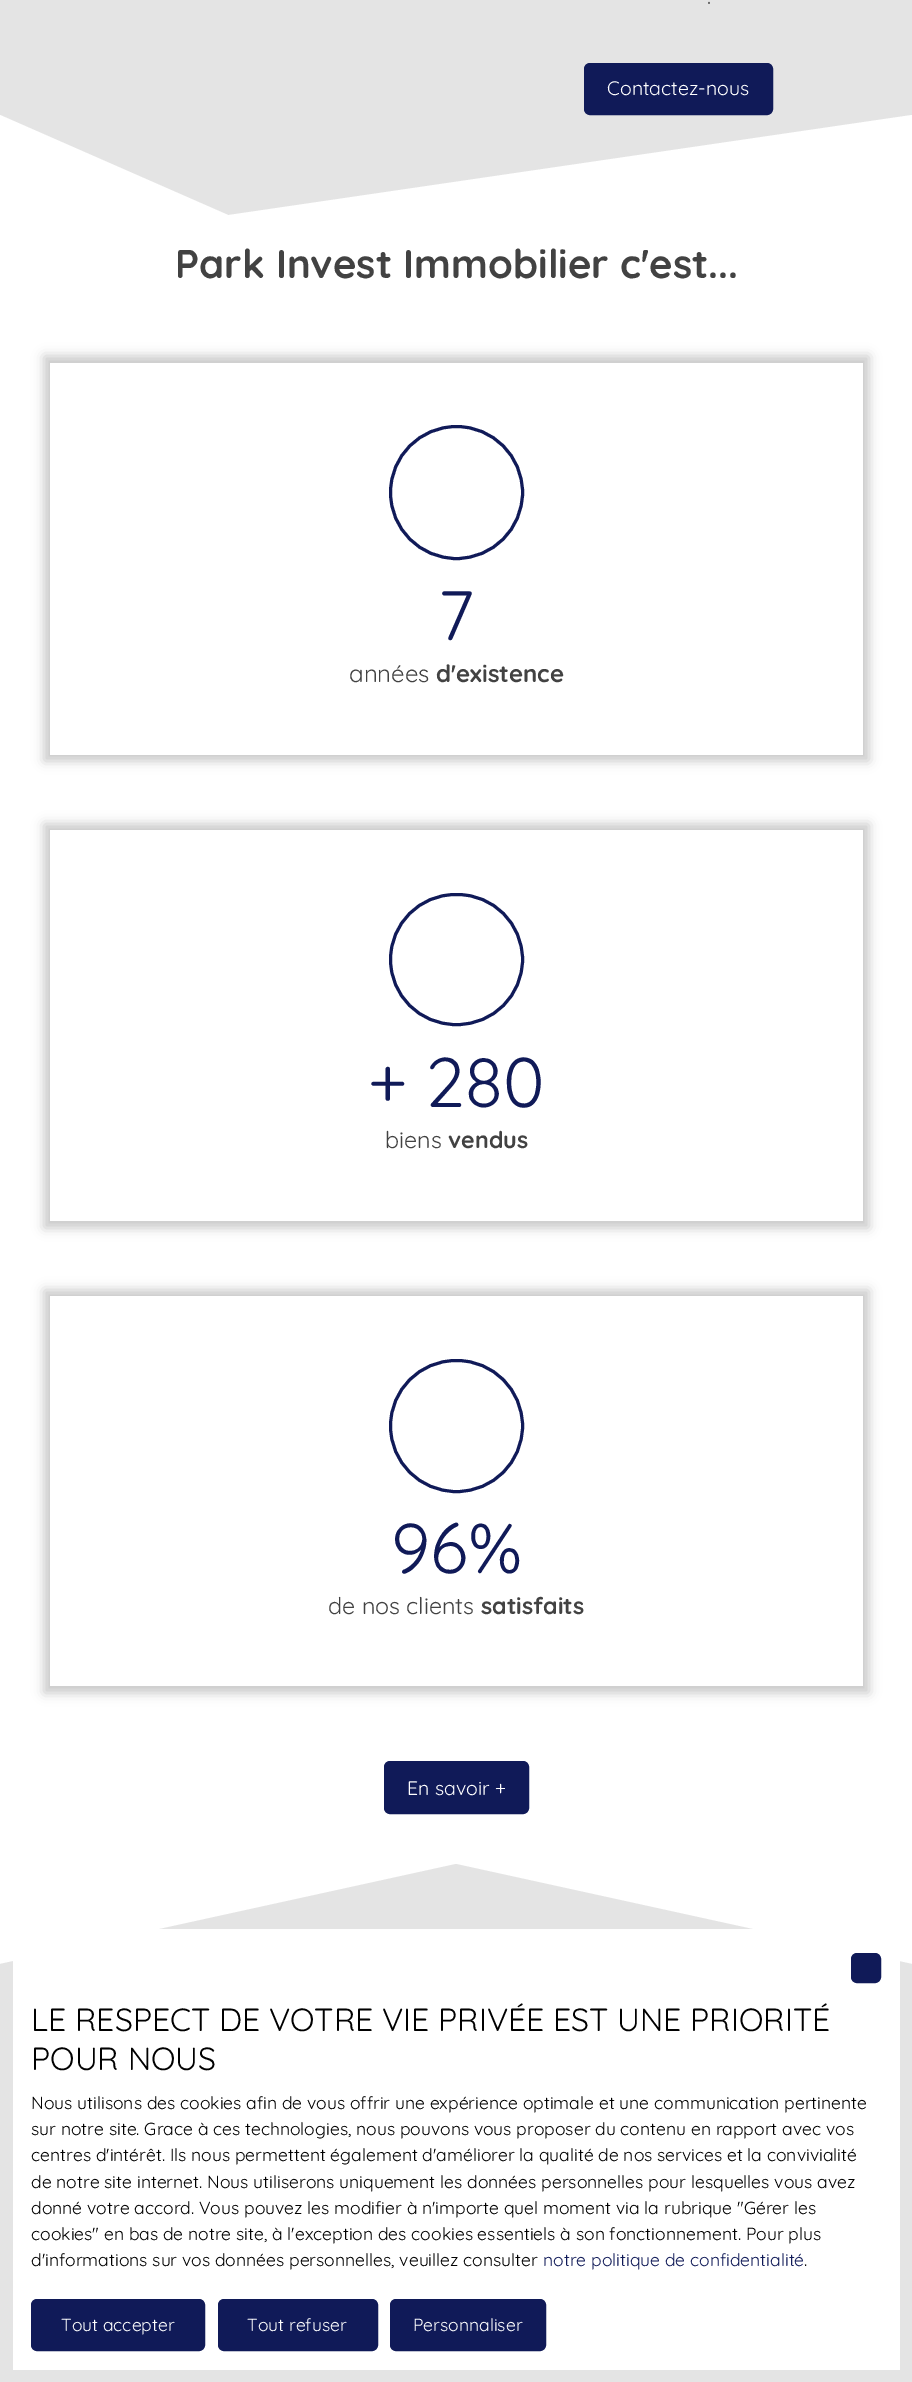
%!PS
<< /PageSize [912 2382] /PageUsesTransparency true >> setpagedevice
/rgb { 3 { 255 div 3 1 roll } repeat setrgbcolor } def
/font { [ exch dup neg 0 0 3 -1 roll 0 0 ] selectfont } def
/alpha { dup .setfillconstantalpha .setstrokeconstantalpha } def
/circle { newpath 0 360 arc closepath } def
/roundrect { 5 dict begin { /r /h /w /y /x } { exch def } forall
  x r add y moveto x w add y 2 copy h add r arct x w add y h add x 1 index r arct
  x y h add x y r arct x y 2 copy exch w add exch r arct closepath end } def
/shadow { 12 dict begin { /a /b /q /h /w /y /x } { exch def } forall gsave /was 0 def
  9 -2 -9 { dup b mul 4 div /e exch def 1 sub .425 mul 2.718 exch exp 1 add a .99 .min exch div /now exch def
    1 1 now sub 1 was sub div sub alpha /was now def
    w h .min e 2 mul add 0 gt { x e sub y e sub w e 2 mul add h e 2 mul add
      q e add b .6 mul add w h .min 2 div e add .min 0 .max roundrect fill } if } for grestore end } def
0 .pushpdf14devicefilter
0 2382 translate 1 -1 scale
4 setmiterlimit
255 255 255 rgb
0 0 912 2382 rectfill
228 228 228 rgb
0 0 912 215 rectfill
16 26 88 rgb
585.5 64.5 186 49 4.5 roundrect gsave fill grestore
3 setlinewidth
stroke
255 255 255 rgb
228 215 moveto 0 215 lineto 0 115 lineto closepath fill
912 215 moveto 229 215 lineto 912 115 lineto closepath fill
gsave
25 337 moveto 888 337 lineto 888 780 lineto 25 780 lineto closepath 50 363 moveto 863 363 lineto 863 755 lineto 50 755 lineto closepath eoclip newpath
66 66 66 rgb
44 356 825 405 0 6 0.3 shadow
grestore
16 26 88 rgb
456.5 492.5 66 circle stroke
gsave
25 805 moveto 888 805 lineto 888 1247 lineto 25 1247 lineto closepath 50 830 moveto 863 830 lineto 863 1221 lineto 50 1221 lineto closepath eoclip newpath
66 66 66 rgb
44 824 825 404 0 6 0.3 shadow
grestore
390.5 894.5 132 130 65 roundrect stroke
gsave
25 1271 moveto 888 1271 lineto 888 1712 lineto 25 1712 lineto closepath 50 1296 moveto 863 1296 lineto 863 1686 lineto 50 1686 lineto closepath eoclip newpath
66 66 66 rgb
44 1290 825 403 0 6 0.3 shadow
grestore
390.5 1360.5 132 131 65.5 roundrect stroke
385.5 1762.5 142 50 4.5 roundrect gsave fill grestore
stroke
228 228 228 rgb
456 1964 moveto 0 1964 lineto 456 1864 lineto closepath fill
912 1964 moveto 456 1964 lineto 456 1864 lineto closepath fill
0 1964 912 418 rectfill
255 255 255 rgb
13 1929 887 441 rectfill
16 26 88 rgb
852.5 1954.5 27 27 4.5 roundrect gsave fill grestore
stroke
32.5 2300.5 171 49 4.5 roundrect gsave fill grestore
stroke
219.5 2300.5 157 49 4.5 roundrect gsave fill grestore
stroke
391.5 2300.5 153 49 4.5 roundrect gsave fill grestore
stroke
/Quicksand-Regular 22 font
66 66 66 rgb
707 4 moveto (.) show
/Quicksand-Regular 19.5 font
255 255 255 rgb
607 95 moveto (Contactez-nous) show
/Quicksand-Bold 40 font
66 66 66 rgb
175 278 moveto (Park Invest Immobilier c'est...) show
/Quicksand-Regular 70 font
16 26 88 rgb
438 640 moveto (7) show
/Quicksand-Regular 24 font
66 66 66 rgb
349 682 moveto (années) show
/Quicksand-Bold 24 font
436 682 moveto (d'existence) show
/Quicksand-Regular 70 font
16 26 88 rgb
368 1107 moveto (+ 280) show
/Quicksand-Regular 23.25 font
66 66 66 rgb
385 1148 moveto (biens) show
/Quicksand-Bold 23.25 font
448 1148 moveto (vendus) show
/Quicksand-Regular 70 font
16 26 88 rgb
391 1573 moveto (96%) show
/Quicksand-Regular 23.25 font
66 66 66 rgb
328 1614 moveto (de nos clients) show
/Quicksand-Bold 23.25 font
481 1614 moveto (satisfaits) show
/Quicksand-Regular 19.5 font
255 255 255 rgb
407 1795 moveto (En savoir +) show
/Quicksand-Regular 32 font
0 0 0 rgb
31 2031 moveto (LE RESPECT DE VOTRE VIE PRIVÉE EST UNE PRIORITÉ) show
31 2070 moveto (POUR NOUS) show
/Quicksand-Regular 17.5 font
[
  [(Nous utilisons des cookies afin de vous offrir une expérience optimale et une communication pertinente) 31 2109]
  [(sur notre site. Grace à ces technologies, nous pouvons vous proposer du contenu en rapport avec vos) 31 2135]
  [(centres d'intérêt. Ils nous permettent également d'améliorer la qualité de nos services et la convivialité) 31 2161]
  [(de notre site internet. Nous utiliserons uniquement les données personnelles pour lesquelles vous avez) 31 2188]
  [(donné votre accord. Vous pouvez les modifier à n'importe quel moment via la rubrique ″Gérer les) 31 2214]
  [(cookies″ en bas de notre site, à l'exception des cookies essentiels à son fonctionnement. Pour plus) 31 2240]
  [(d'informations sur vos données personnelles, veuillez consulter) 31 2266]
] { aload pop moveto show } forall
16 26 88 rgb
543 2266 moveto (notre politique de confidentialité) show
0 0 0 rgb
804 2266 moveto (.) show
255 255 255 rgb
[
  [(Tout accepter) 61 2331]
  [(Tout refuser) 247 2331]
  [(Personnaliser) 413 2331]
] { aload pop moveto show } forall
.poppdf14devicefilter showpage
